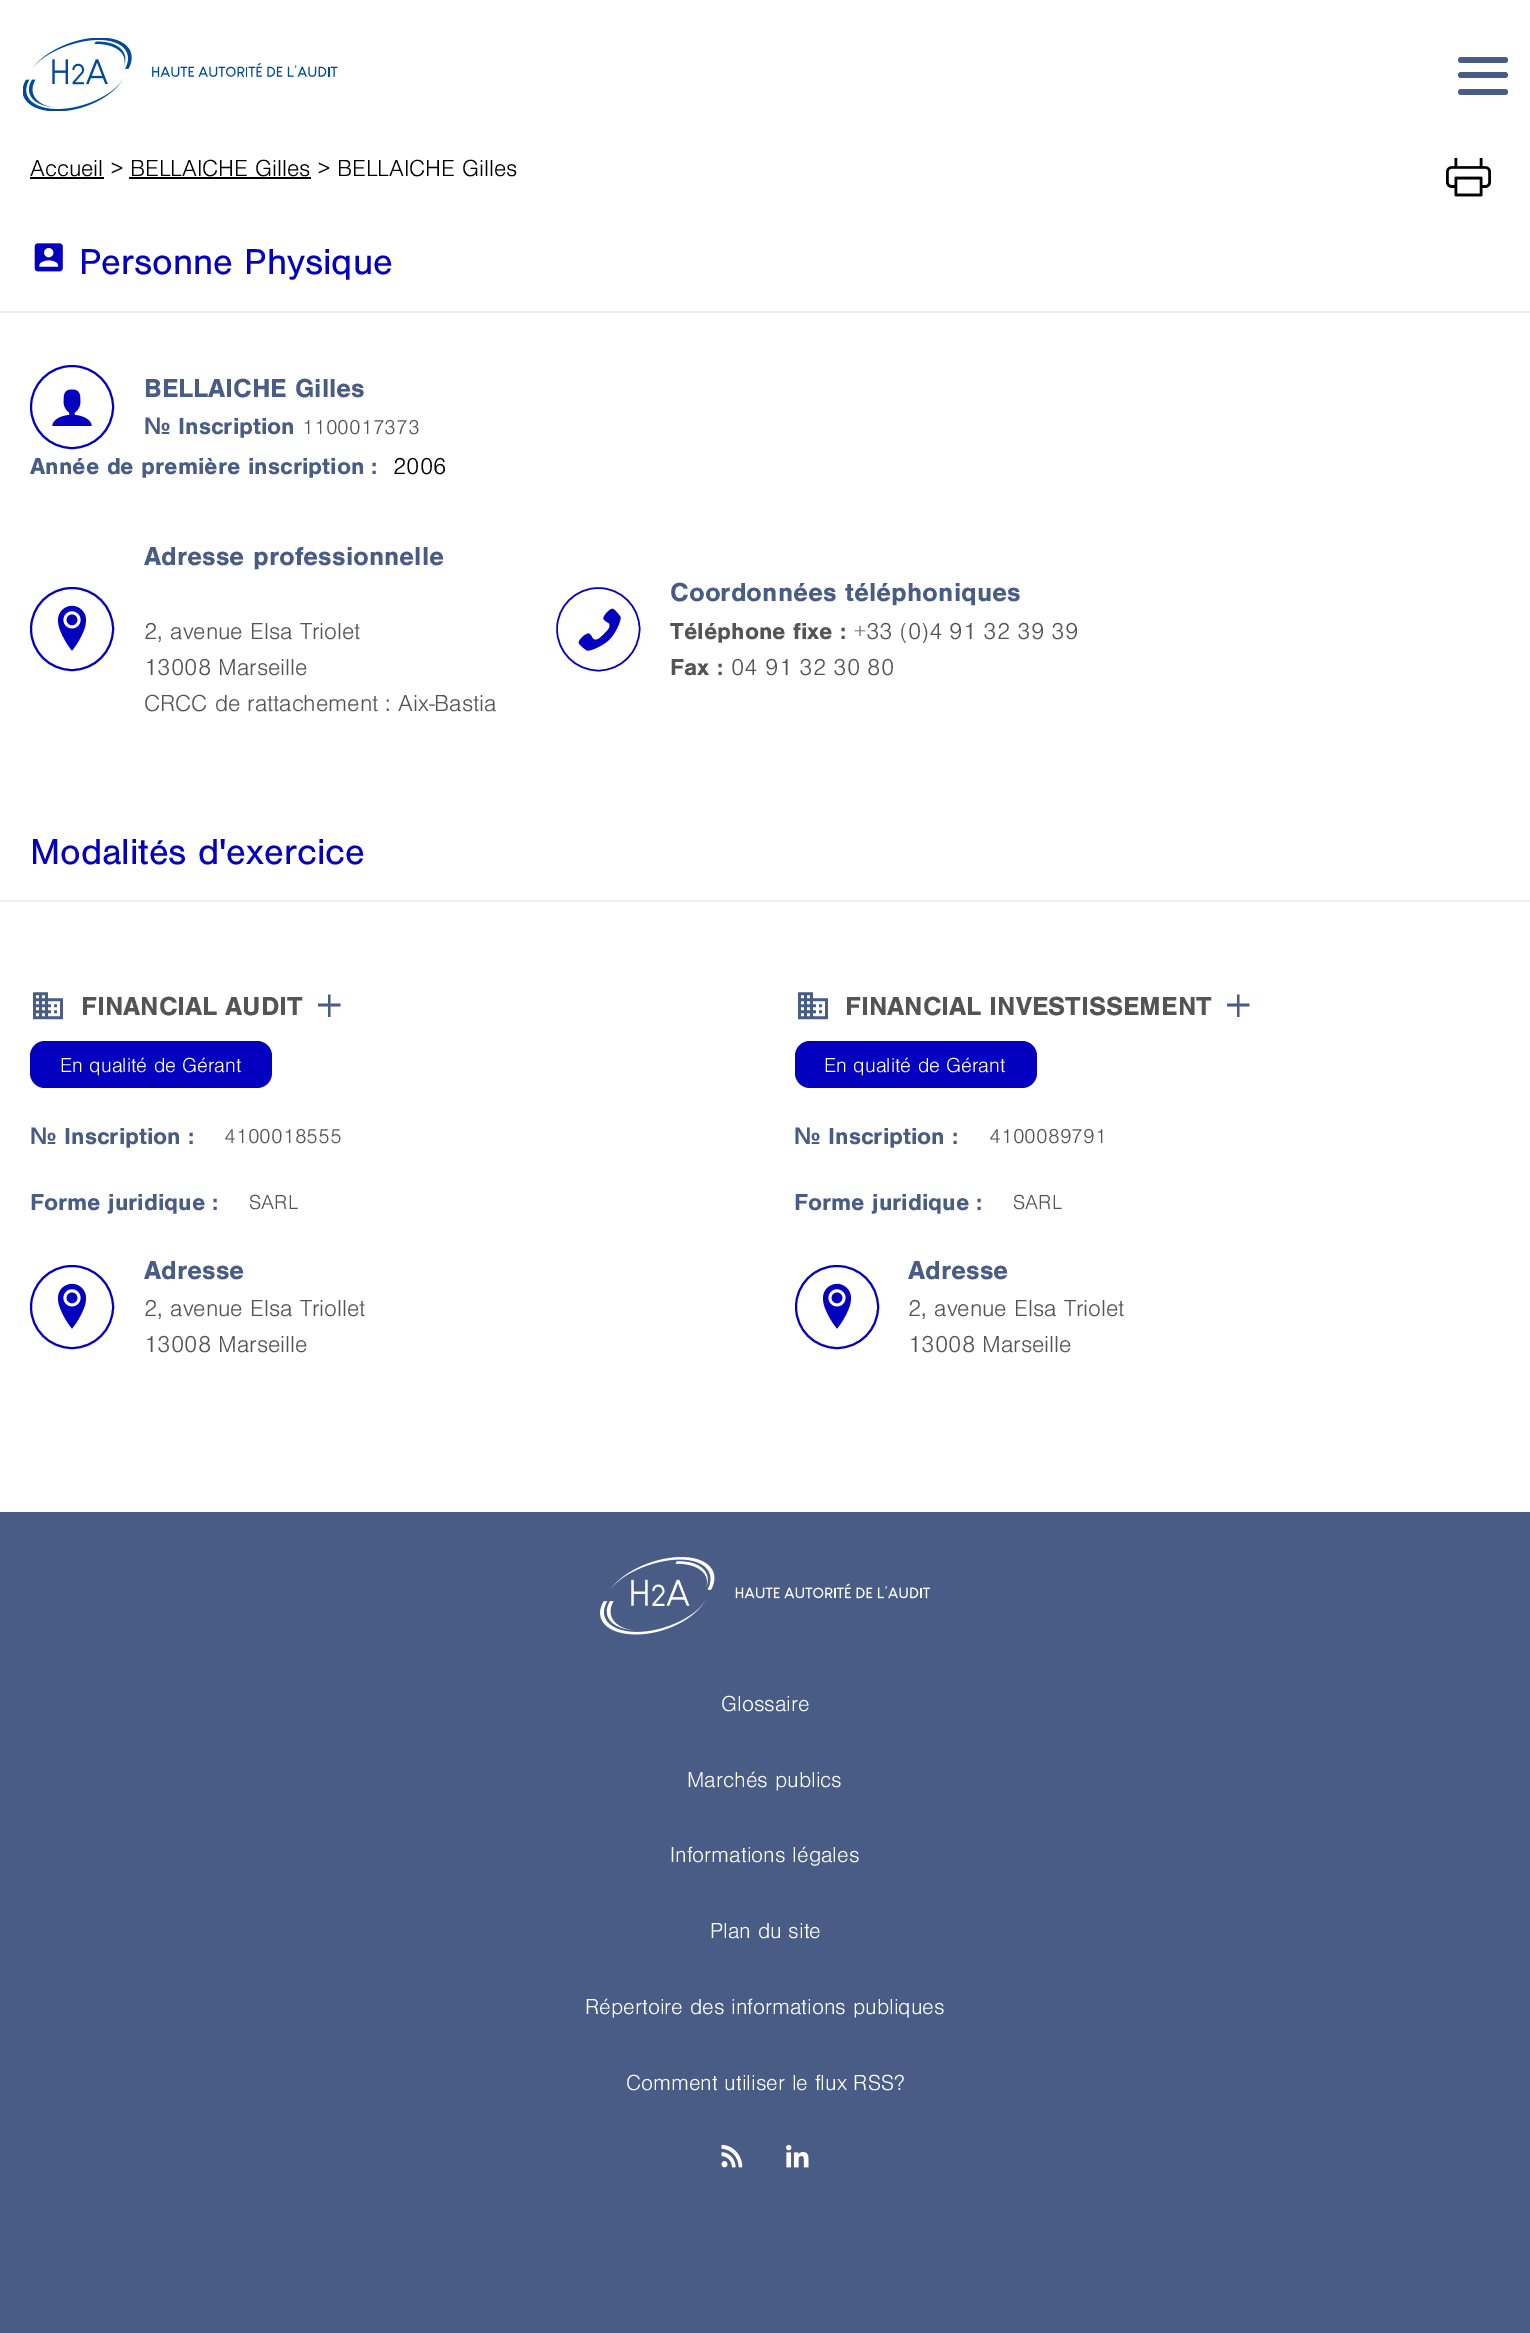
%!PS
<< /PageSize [1530 2333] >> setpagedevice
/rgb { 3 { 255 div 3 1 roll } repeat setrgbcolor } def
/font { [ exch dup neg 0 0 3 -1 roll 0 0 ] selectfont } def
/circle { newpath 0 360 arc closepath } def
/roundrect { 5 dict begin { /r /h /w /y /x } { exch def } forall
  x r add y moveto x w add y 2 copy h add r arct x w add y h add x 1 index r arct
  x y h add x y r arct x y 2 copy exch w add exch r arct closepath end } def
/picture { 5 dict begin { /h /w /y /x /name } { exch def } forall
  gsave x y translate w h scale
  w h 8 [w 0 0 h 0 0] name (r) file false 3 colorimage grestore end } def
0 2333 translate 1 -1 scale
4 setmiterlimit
255 255 255 rgb
0 0 1530 2333 rectfill
(img/1.rgb) 23 38 315 73 picture
73 92 134 rgb
1458 57 50 6 3 roundrect fill
1458 72 50 6 3 roundrect fill
1458 89 50 6 3 roundrect fill
0 0 0 rgb
30 177 74 2 rectfill
129 177 182 2 rectfill
(img/2.rgb) 1446 158 45 39 picture
(img/3.rgb) 34 243 29 29 picture
240 240 240 rgb
0 311 1530 2 rectfill
4 0 191 rgb
2 setlinewidth
72 407 41 circle stroke
(img/4.rgb) 52 389 40 37 picture
72 629 41 circle stroke
(img/5.rgb) 57 605 30 46 picture
1.5 setlinewidth
598.5 588 moveto 575.5 588 557 606.5 557 629 curveto 557 652 575.5 670.5 598.5 670.5 curveto 621 670.5 639.5 652 639.5 629 curveto 639.5 606.5 621 588 598.5 588 curveto closepath stroke
(img/6.rgb) 578 608 43 43 picture
240 240 240 rgb
0 900 1530 2 rectfill
(img/7.rgb) 33 992 30 28 picture
73 92 134 rgb
328 994.5 moveto 330.5 994.5 lineto 330.5 1017 lineto 328 1017 lineto closepath 340.5 1003.5 moveto 340.5 1006.5 lineto 318 1006.5 lineto 318 1003.5 lineto closepath fill
4 0 191 rgb
30 1041 242 47 15 roundrect fill
2 setlinewidth
72 1307 41 circle stroke
(img/5.rgb) 57 1283 30 46 picture
(img/7.rgb) 798 992 30 28 picture
73 92 134 rgb
1237 994.5 moveto 1239.5 994.5 lineto 1239.5 1017 lineto 1237 1017 lineto closepath 1249.5 1003.5 moveto 1249.5 1006.5 lineto 1227 1006.5 lineto 1227 1003.5 lineto closepath fill
4 0 191 rgb
795 1041 242 47 15 roundrect fill
837 1307 41 circle stroke
(img/5.rgb) 822 1283 30 46 picture
73 92 134 rgb
0 1512 1530 821 rectfill
(img/8.rgb) 600 1557 330 78 picture
(img/9.rgb) 721 2144 22 24 picture
(img/10.rgb) 786 2144 23 24 picture
/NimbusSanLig-Regular 24 font
0 0 0 rgb
30 176 moveto (Accueil > BELLAICHE Gilles > BELLAICHE Gilles) show
/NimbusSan-Regular 37.5 font
4 0 191 rgb
79 274 moveto (Personne Physique) show
/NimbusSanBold-Bold 27 font
73 92 134 rgb
144 397 moveto (BELLAICHE Gilles) show
/LiberationSans-Bold 24 font
144 434 moveto (№) show
/NimbusSanBold-Bold 24 font
178 434 moveto (Inscription) show
/NimbusSanLig-Regular 21 font
84 84 84 rgb
302 434 moveto (1100017373) show
/NimbusSanBold-Bold 24 font
73 92 134 rgb
30 474 moveto (Année de première inscription :) show
/NimbusSanLig-Regular 24 font
0 0 0 rgb
393 474 moveto (2006) show
/NimbusSanBold-Bold 27 font
73 92 134 rgb
144 565 moveto (Adresse professionnelle) show
/NimbusSanLig-Regular 24 font
84 84 84 rgb
[
  [(2, avenue Elsa Triolet) 144 639]
  [(13008 Marseille) 144 675]
  [(CRCC de rattachement : Aix-Bastia) 144 711]
] { aload pop moveto show } forall
/NimbusSanBold-Bold 27 font
73 92 134 rgb
670 601 moveto (Coordonnées téléphoniques) show
/NimbusSanBold-Bold 24 font
84 84 84 rgb
670 639 moveto (Téléphone fixe :) show
/NimbusSanLig-Regular 24 font
854 639 moveto (+33 \(0\)4 91 32 39 39) show
/NimbusSanBold-Bold 24 font
670 675 moveto (Fax :) show
/NimbusSanLig-Regular 24 font
731 675 moveto (04 91 32 30 80) show
/NimbusSan-Regular 37.5 font
4 0 191 rgb
30 864 moveto (Modalités d'exercice) show
/NimbusSanBold-Bold 27 font
84 84 84 rgb
81 1015 moveto (FINANCIAL AUDIT) show
/NimbusSanLig-Regular 21 font
255 255 255 rgb
60 1072 moveto (En qualité de Gérant) show
/LiberationSans-Bold 24 font
73 92 134 rgb
30 1144 moveto (№) show
/NimbusSanBold-Bold 24 font
64 1144 moveto (Inscription :) show
/NimbusSanLig-Regular 21 font
84 84 84 rgb
224 1143 moveto (4100018555) show
/NimbusSanBold-Bold 24 font
73 92 134 rgb
30 1210 moveto (Forme juridique :) show
/NimbusSanLig-Regular 21 font
84 84 84 rgb
249 1209 moveto (SARL) show
/NimbusSanBold-Bold 27 font
73 92 134 rgb
144 1279 moveto (Adresse) show
/NimbusSanLig-Regular 24 font
84 84 84 rgb
144 1316 moveto (2, avenue Elsa Triollet) show
144 1352 moveto (13008 Marseille) show
/NimbusSanBold-Bold 27 font
845 1015 moveto (FINANCIAL INVESTISSEMENT) show
/NimbusSanLig-Regular 21 font
255 255 255 rgb
824 1072 moveto (En qualité de Gérant) show
/LiberationSans-Bold 24 font
73 92 134 rgb
794 1144 moveto (№) show
/NimbusSanBold-Bold 24 font
828 1144 moveto (Inscription :) show
/NimbusSanLig-Regular 21 font
84 84 84 rgb
989 1143 moveto (4100089791) show
/NimbusSanBold-Bold 24 font
73 92 134 rgb
794 1210 moveto (Forme juridique :) show
/NimbusSanLig-Regular 21 font
84 84 84 rgb
1013 1209 moveto (SARL) show
/NimbusSanBold-Bold 27 font
73 92 134 rgb
908 1279 moveto (Adresse) show
/NimbusSanLig-Regular 24 font
84 84 84 rgb
908 1316 moveto (2, avenue Elsa Triolet) show
908 1352 moveto (13008 Marseille) show
/NimbusSanLig-Regular 22.5 font
255 255 255 rgb
[
  [(Glossaire) 721 1711]
  [(Marchés publics) 687 1787]
  [(Informations légales) 670 1862]
  [(Plan du site) 710 1938]
  [(Répertoire des informations publiques) 585 2014]
  [(Comment utiliser le flux RSS?) 626 2090]
] { aload pop moveto show } forall
showpage
